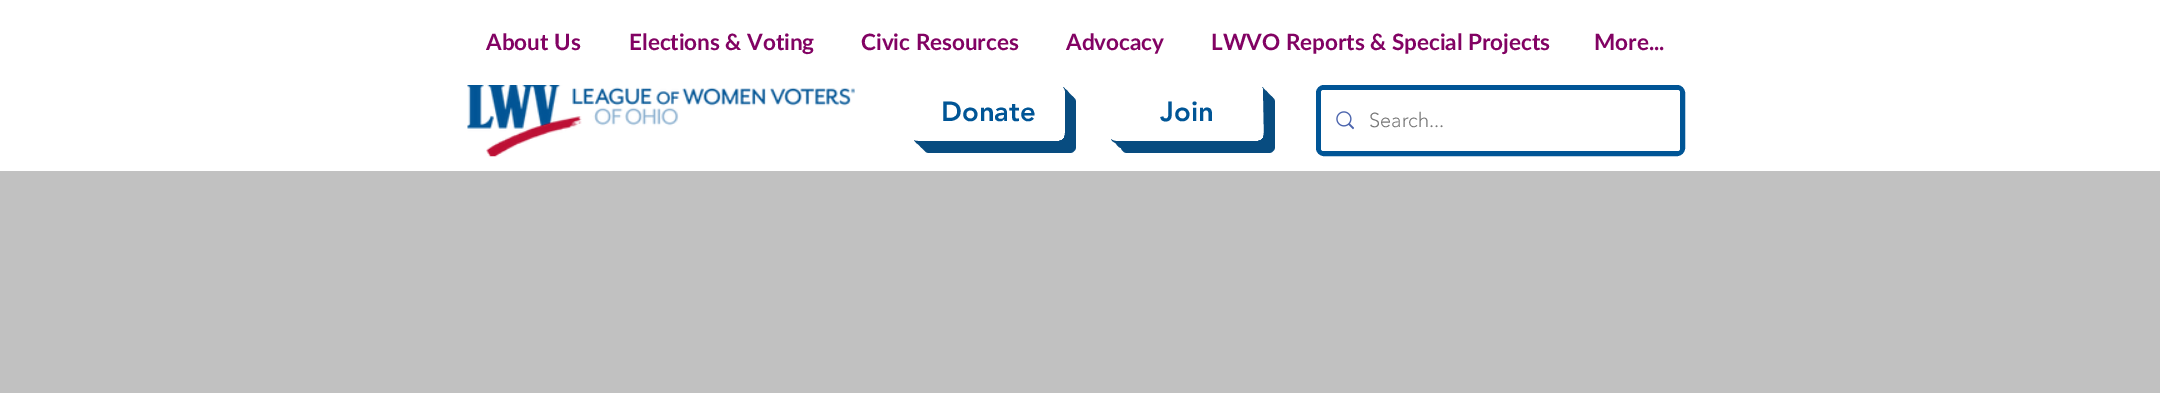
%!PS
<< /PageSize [2160 393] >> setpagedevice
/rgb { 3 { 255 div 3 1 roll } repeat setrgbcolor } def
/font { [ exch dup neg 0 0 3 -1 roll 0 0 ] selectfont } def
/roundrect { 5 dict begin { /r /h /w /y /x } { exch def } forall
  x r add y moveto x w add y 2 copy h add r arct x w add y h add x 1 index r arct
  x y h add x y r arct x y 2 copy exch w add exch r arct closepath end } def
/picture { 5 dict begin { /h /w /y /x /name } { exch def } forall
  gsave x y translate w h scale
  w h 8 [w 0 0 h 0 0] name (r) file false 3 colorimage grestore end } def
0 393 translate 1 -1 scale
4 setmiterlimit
255 255 255 rgb
0 0 2160 393 rectfill
(img/1.rgb) 467 85 388 72 picture
8 76 128 rgb
923 141 moveto 923 147 lineto 923 150 926 153 929 153 curveto 1070 153 lineto 1073 153 1076 150 1076 147 curveto 1076 102 lineto 1076 99 1073 96 1070 96 curveto 1065 96 lineto 1065 135 lineto 1065 138 1062 141 1059 141 curveto closepath fill
920 141 moveto 920 144 lineto 920 147 923 150 926 150 curveto 1068 150 lineto 1071 150 1074 147 1074 144 curveto 1074 100 lineto 1074 97 1071 94 1068 94 curveto 1065 94 lineto 1065 135 lineto 1065 138 1062 141 1059 141 curveto closepath fill
918 141 moveto 918 142 lineto 918 145 921 148 924 148 curveto 1065 148 lineto 1068 148 1071 145 1071 142 curveto 1071 97 lineto 1071 94 1068 91 1065 91 curveto 1065 128 lineto 1065 133 1066 141 1059 141 curveto closepath fill
915 141 moveto 916 143 918 145 921 145 curveto 1063 145 lineto 1066 145 1069 142 1069 139 curveto 1069 95 lineto 1069 92 1067 90 1065 89 curveto 1065 136 lineto 1063 145 1044 141 1035 141 curveto 941 141 lineto 932 141 923 144 915 141 curveto closepath fill
914 140 moveto 915 142 917 143 919 143 curveto 1060 143 lineto 1063 143 1066 140 1066 137 curveto 1066 92 lineto 1066 90 1065 88 1063 87 curveto 1064 88 1065 90 1065 91 curveto 1065 135 lineto 1065 138 1062 141 1059 141 curveto 918 141 lineto 916 141 915 141 914 140 curveto closepath fill
1121 141 moveto 1121 147 lineto 1121 150 1124 153 1127 153 curveto 1269 153 lineto 1272 153 1275 150 1275 147 curveto 1275 102 lineto 1275 99 1272 96 1269 96 curveto 1264 96 lineto 1264 135 lineto 1264 138 1261 141 1258 141 curveto closepath fill
1119 141 moveto 1119 144 lineto 1119 147 1122 150 1125 150 curveto 1267 150 lineto 1270 150 1273 147 1273 144 curveto 1273 100 lineto 1273 97 1270 94 1267 94 curveto 1264 94 lineto 1264 135 lineto 1264 138 1261 141 1258 141 curveto closepath fill
1116 141 moveto 1116 142 lineto 1116 145 1119 148 1122 148 curveto 1264 148 lineto 1267 148 1270 145 1270 142 curveto 1270 97 lineto 1270 94 1267 91 1264 91 curveto 1264 128 lineto 1264 133 1265 141 1258 141 curveto closepath fill
1114 141 moveto 1115 143 1117 145 1120 145 curveto 1262 145 lineto 1265 145 1268 142 1268 139 curveto 1268 95 lineto 1268 92 1266 90 1263 89 curveto 1264 136 lineto 1262 145 1243 141 1234 141 curveto closepath fill
1111 139 moveto 1112 141 1114 143 1117 143 curveto 1259 143 lineto 1262 143 1265 140 1265 137 curveto 1265 92 lineto 1265 90 1264 88 1262 87 curveto 1263 88 1264 89 1264 91 curveto 1264 135 lineto 1264 138 1261 141 1258 141 curveto 1116 141 lineto 1114 141 1112 140 1111 139 curveto closepath fill
0 85 150 rgb
5 setlinewidth
1318.5 87.5 364 66 5.5 roundrect stroke
255 255 255 rgb
1321 90 359 61 2.5 roundrect fill
(img/2.rgb) 1336 111 18 19 picture
193 193 193 rgb
0 171 2160 222 rectfill
/Lato-Bold 22.5 font
130 2 99 rgb
[
  [(About Us) 486 50]
  [(Elections & Voting) 629 50]
  [(Civic Resources) 861 50]
  [(Advocacy) 1066 50]
  [(LWVO Reports & Special Projects) 1211 50]
  [(More...) 1594 50]
] { aload pop moveto show } forall
/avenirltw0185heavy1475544-Black 27.5 font
0 85 150 rgb
941 121 moveto (Donate) show
1160 121 moveto (Join) show
/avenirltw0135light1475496-Light 20 font
120 120 120 rgb
1369 127 moveto (Search...) show
showpage
